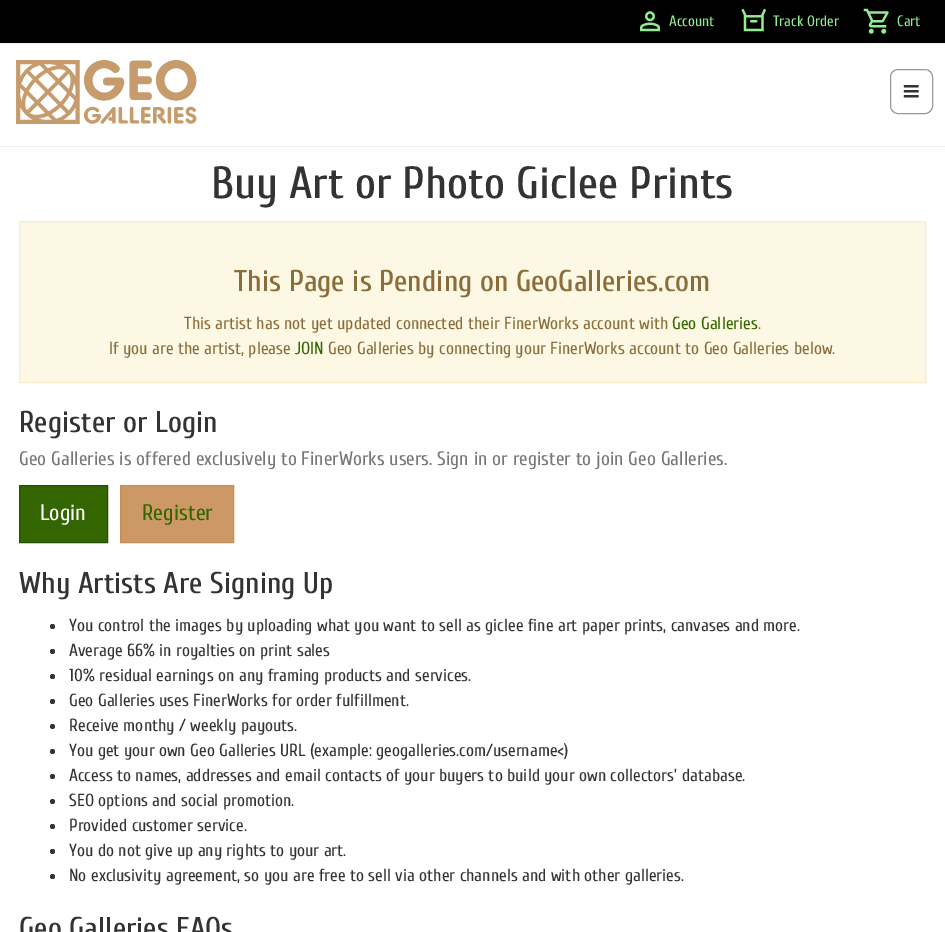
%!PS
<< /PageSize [945 932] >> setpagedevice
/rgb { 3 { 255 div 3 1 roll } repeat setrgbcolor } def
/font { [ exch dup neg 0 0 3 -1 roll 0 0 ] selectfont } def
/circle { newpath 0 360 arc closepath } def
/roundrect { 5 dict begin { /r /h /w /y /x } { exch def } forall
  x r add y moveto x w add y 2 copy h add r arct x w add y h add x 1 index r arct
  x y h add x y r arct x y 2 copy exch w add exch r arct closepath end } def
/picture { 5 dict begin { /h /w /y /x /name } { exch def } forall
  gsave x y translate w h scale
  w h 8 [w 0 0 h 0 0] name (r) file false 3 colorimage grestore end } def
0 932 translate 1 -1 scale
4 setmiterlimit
255 255 255 rgb
0 0 945 932 rectfill
0 0 0 rgb
0 0 945 43 rectfill
238 238 238 rgb
0 43 945 1 rectfill
(img/1.rgb) 640 11 20 21 picture
(img/2.rgb) 741 8 26 24 picture
(img/3.rgb) 863 8 26 26 picture
(img/4.rgb) 16 60 181 64 picture
153 153 153 rgb
890.5 69.5 42 44 7.5 roundrect stroke
(img/5.rgb) 903 85 16 13 picture
238 238 238 rgb
0 146 945 1 rectfill
252 248 227 rgb
19.5 221.5 moveto 925.5 221.5 lineto 925.5 382.5 lineto 19.5 382.5 lineto closepath gsave fill grestore
250 235 204 rgb
stroke
51 102 0 rgb
19.5 485.5 moveto 107.5 485.5 lineto 107.5 542.5 lineto 19.5 542.5 lineto closepath gsave fill grestore
38 77 0 rgb
stroke
204 153 102 rgb
120.5 485.5 moveto 233.5 485.5 lineto 233.5 542.5 lineto 120.5 542.5 lineto closepath gsave fill grestore
198 140 83 rgb
stroke
51 51 51 rgb
52.5 626.5 2.5 circle fill
52.5 651.5 2.5 circle fill
52.5 676.5 2.5 circle fill
52.5 701.5 2.5 circle fill
52.5 726.5 2.5 circle fill
52.5 751.5 2.5 circle fill
52.5 776.5 2.5 circle fill
52.5 801.5 2.5 circle fill
52.5 826.5 2.5 circle fill
52.5 851.5 2.5 circle fill
52.5 876.5 2.5 circle fill
/Cuprum-Regular 15 font
144 238 144 rgb
[
  [(Account) 669 26]
  [(Track Order) 773 26]
  [(Cart) 897 26]
] { aload pop moveto show } forall
/Cuprum-Medium 45 font
51 51 51 rgb
211 198 moveto (Buy Art or Photo Giclee Prints) show
/Cuprum-Medium 30 font
138 109 59 rgb
234 291 moveto (This Page is Pending on GeoGalleries.com) show
/Cuprum-Regular 17.5 font
184 329 moveto (This artist has not yet updated connected their FinerWorks account with) show
51 102 0 rgb
672 329 moveto (Geo Galleries) show
138 109 59 rgb
758 329 moveto (.) show
109 354 moveto (If you are the artist, please) show
51 102 0 rgb
295 354 moveto (JOIN) show
138 109 59 rgb
328 354 moveto (Geo Galleries by connecting your FinerWorks account to Geo Galleries below.) show
/Cuprum-Medium 30 font
51 51 51 rgb
19 432 moveto (Register or Login) show
/Cuprum-Regular 19.5 font
119 119 119 rgb
19 465 moveto (Geo Galleries is offered exclusively to FinerWorks users. Sign in or register to join Geo Galleries.) show
/Cuprum-Regular 22.5 font
255 255 255 rgb
40 520 moveto (Login) show
51 102 0 rgb
142 520 moveto (Register) show
/Cuprum-Medium 30 font
51 51 51 rgb
19 593 moveto (Why Artists Are Signing Up) show
/Cuprum-Regular 17.5 font
[
  [(You control the images by uploading what you want to sell as giclee fine art paper prints, canvases and more.) 69 631]
  [(Average 66% in royalties on print sales) 69 656]
  [(10% residual earnings on any framing products and services.) 69 681]
  [(Geo Galleries uses FinerWorks for order fulfillment.) 69 706]
  [(Receive monthy / weekly payouts.) 69 731]
  [(You get your own Geo Galleries URL \(example: geogalleries.com/username<\)) 69 756]
  [(Access to names, addresses and email contacts of your buyers to build your own collectors’ database.) 69 781]
  [(SEO options and social promotion.) 69 806]
  [(Provided customer service.) 69 831]
  [(You do not give up any rights to your art.) 69 856]
  [(No exclusivity agreement, so you are free to sell via other channels and with other galleries.) 69 881]
] { aload pop moveto show } forall
/Cuprum-Medium 30 font
19 938 moveto (Geo Galleries FAQs) show
showpage
